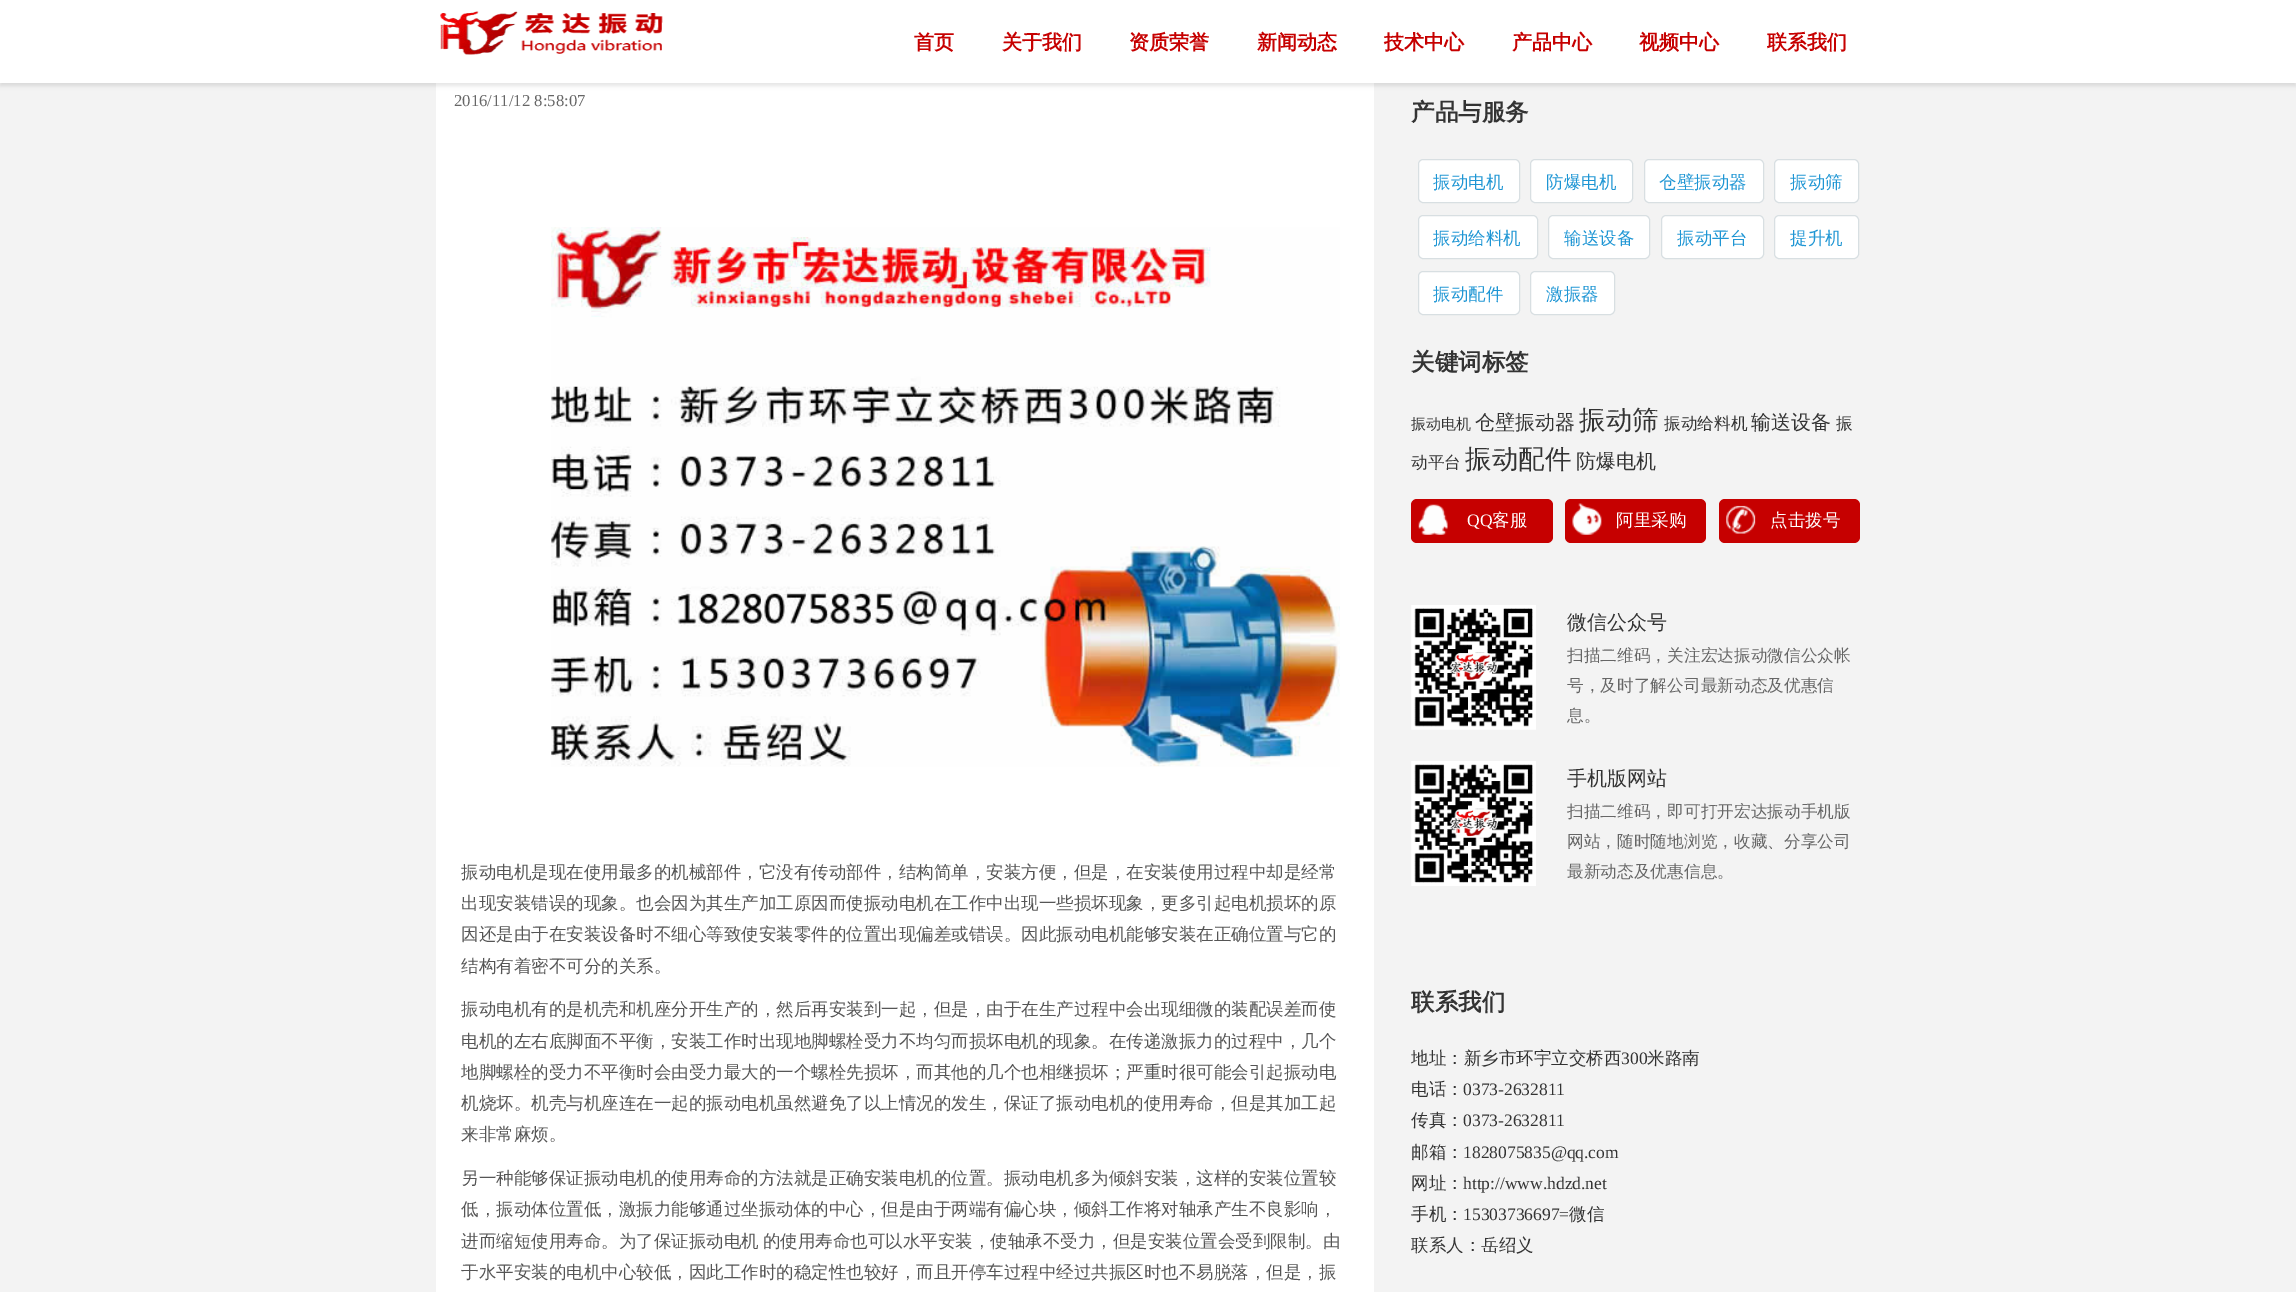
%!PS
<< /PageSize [2296 1292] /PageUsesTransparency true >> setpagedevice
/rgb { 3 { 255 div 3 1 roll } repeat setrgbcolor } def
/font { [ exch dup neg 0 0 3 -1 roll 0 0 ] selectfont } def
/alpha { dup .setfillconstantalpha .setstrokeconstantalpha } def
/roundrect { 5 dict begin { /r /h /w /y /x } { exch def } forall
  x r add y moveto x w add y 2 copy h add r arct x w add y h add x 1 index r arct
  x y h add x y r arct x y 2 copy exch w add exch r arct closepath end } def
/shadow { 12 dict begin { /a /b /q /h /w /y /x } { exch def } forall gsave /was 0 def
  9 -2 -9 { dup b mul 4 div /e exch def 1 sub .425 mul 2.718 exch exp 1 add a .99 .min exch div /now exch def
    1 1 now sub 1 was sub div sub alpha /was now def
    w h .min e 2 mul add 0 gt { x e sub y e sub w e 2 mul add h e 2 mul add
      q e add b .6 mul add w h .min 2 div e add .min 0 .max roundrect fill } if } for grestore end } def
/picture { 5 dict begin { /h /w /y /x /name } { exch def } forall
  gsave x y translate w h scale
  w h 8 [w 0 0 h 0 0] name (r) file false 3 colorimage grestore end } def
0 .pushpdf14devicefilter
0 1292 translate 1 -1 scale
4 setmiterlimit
243 243 243 rgb
0 0 2296 1292 rectfill
255 255 255 rgb
436 83 938 1209 rectfill
0 0 0 rgb
0 4 2296 82 0 2 0.1 shadow
255 255 255 rgb
0 0 2296 83 rectfill
(img/1.rgb) 440 11 223 44 picture
(img/2.rgb) 551 227 789 540 picture
1418.5 159.5 101 43 4.5 roundrect gsave fill grestore
216 223 226 rgb
stroke
255 255 255 rgb
1530.5 159.5 102 43 4.5 roundrect gsave fill grestore
216 223 226 rgb
stroke
255 255 255 rgb
1644.5 159.5 119 43 4.5 roundrect gsave fill grestore
216 223 226 rgb
stroke
255 255 255 rgb
1774.5 159.5 84 43 4.5 roundrect gsave fill grestore
216 223 226 rgb
stroke
255 255 255 rgb
1418.5 215.5 119 43 4.5 roundrect gsave fill grestore
216 223 226 rgb
stroke
255 255 255 rgb
1548.5 215.5 101 43 4.5 roundrect gsave fill grestore
216 223 226 rgb
stroke
255 255 255 rgb
1661.5 215.5 102 43 4.5 roundrect gsave fill grestore
216 223 226 rgb
stroke
255 255 255 rgb
1774.5 215.5 84 43 4.5 roundrect gsave fill grestore
216 223 226 rgb
stroke
255 255 255 rgb
1418.5 271.5 101 43 4.5 roundrect gsave fill grestore
216 223 226 rgb
stroke
255 255 255 rgb
1530.5 271.5 84 43 4.5 roundrect gsave fill grestore
216 223 226 rgb
stroke
198 0 0 rgb
1411 499 142 44 6 roundrect fill
(img/3.rgb) 1418 504 30 31 picture
1565 499 141 44 6 roundrect fill
(img/4.rgb) 1572 503 30 32 picture
1719 499 141 44 6 roundrect fill
(img/5.rgb) 1726 505 30 29 picture
(img/6.rgb) 1411 605 125 125 picture
(img/7.rgb) 1411 761 125 125 picture
/WenQuanYiZenHei-Bold 20 font
[
  [(首页) 914 49]
  [(关于我们) 1002 49]
  [(资质荣誉) 1129 49]
  [(新闻动态) 1257 49]
  [(技术中心) 1384 49]
  [(产品中心) 1512 49]
  [(视频中心) 1639 49]
  [(联系我们) 1767 49]
] { aload pop moveto show } forall
/LiberationSerif-Regular 16.7 font
102 102 102 rgb
454 106 moveto (2016/11/12 8:58:07) show
/WenQuanYiZenHei-Medium 17.5 font
85 85 85 rgb
[
  [(振动电机是现在使用最多的机械部件，它没有传动部件，结构简单，安装方便，但是，在安装使用过程中却是经常) 461 878]
  [(出现安装错误的现象。也会因为其生产加工原因而使振动电机在工作中出现一些损坏现象，更多引起电机损坏的原) 461 909]
  [(因还是由于在安装设备时不细心等致使安装零件的位置出现偏差或错误。因此振动电机能够安装在正确位置与它的) 461 940]
  [(结构有着密不可分的关系。) 461 972]
  [(振动电机有的是机壳和机座分开生产的，然后再安装到一起，但是，由于在生产过程中会出现细微的装配误差而使) 461 1015]
  [(电机的左右底脚面不平衡，安装工作时出现地脚螺栓受力不均匀而损坏电机的现象。在传递激振力的过程中，几个) 461 1047]
  [(地脚螺栓的受力不平衡时会由受力最大的一个螺栓先损坏，而其他的几个也相继损坏；严重时很可能会引起振动电) 461 1078]
  [(机烧坏。机壳与机座连在一起的振动电机虽然避免了以上情况的发生，保证了振动电机的使用寿命，但是其加工起) 461 1109]
  [(来非常麻烦。) 461 1140]
  [(另一种能够保证振动电机的使用寿命的方法就是正确安装电机的位置。振动电机多为倾斜安装，这样的安装位置较) 461 1184]
  [(低，振动体位置低，激振力能够通过坐振动体的中心，但是由于两端有偏心块，倾斜工作将对轴承产生不良影响，) 461 1215]
] { aload pop moveto show } forall
461 1247 moveto -1 0 32 (进而缩短使用寿命。为了保证振动电机 的使用寿命也可以水平安装，使轴承不受力，但是安装位置会受到限制。由) widthshow
461 1278 moveto (于水平安装的电机中心较低，因此工作时的稳定性也较好，而且开停车过程中经过共振区时也不易脱落，但是，振) show
/WenQuanYiZenHei-Bold 23.5 font
51 51 51 rgb
1411 120 moveto (产品与服务) show
/WenQuanYiZenHei-Medium 17.5 font
31 150 212 rgb
[
  [(振动电机) 1433 188]
  [(防爆电机) 1546 188]
  [(仓壁振动器) 1659 188]
  [(振动筛) 1790 188]
  [(振动给料机) 1433 244]
  [(输送设备) 1564 244]
  [(振动平台) 1677 244]
  [(提升机) 1790 244]
  [(振动配件) 1433 300]
  [(激振器) 1546 300]
] { aload pop moveto show } forall
/WenQuanYiZenHei-Bold 23.5 font
51 51 51 rgb
1411 370 moveto (关键词标签) show
/WenQuanYiZenHei-Medium 15 font
1411 429 moveto (振动电机) show
/WenQuanYiZenHei-Medium 20 font
1475 429 moveto (仓壁振动器) show
/WenQuanYiZenHei-Medium 26.5 font
1579 429 moveto (振动筛) show
/WenQuanYiZenHei-Medium 16.7 font
1664 429 moveto (振动给料机) show
/WenQuanYiZenHei-Medium 20 font
1751 429 moveto (输送设备) show
/WenQuanYiZenHei-Medium 16.7 font
1836 429 moveto (振) show
1411 468 moveto (动平台) show
/WenQuanYiZenHei-Medium 26.5 font
1465 468 moveto (振动配件) show
/WenQuanYiZenHei-Medium 20 font
1576 468 moveto (防爆电机) show
/LiberationSerif-Regular 17.5 font
255 255 255 rgb
1467 526 moveto (QQ) show
/WenQuanYiZenHei-Medium 17.5 font
[
  [(客服) 1492 526]
  [(阿里采购) 1616 526]
  [(点击拨号) 1770 526]
] { aload pop moveto show } forall
/WenQuanYiZenHei-Medium 20 font
51 51 51 rgb
1567 629 moveto (微信公众号) show
/WenQuanYiZenHei-Medium 16.7 font
102 102 102 rgb
[
  [(扫描二维码，关注宏达振动微信公众帐) 1567 661]
  [(号，及时了解公司最新动态及优惠信) 1567 691]
  [(息。) 1567 721]
] { aload pop moveto show } forall
/WenQuanYiZenHei-Medium 20 font
51 51 51 rgb
1567 785 moveto (手机版网站) show
/WenQuanYiZenHei-Medium 16.7 font
102 102 102 rgb
[
  [(扫描二维码，即可打开宏达振动手机版) 1567 817]
  [(网站，随时随地浏览，收藏、分享公司) 1567 847]
  [(最新动态及优惠信息。) 1567 877]
] { aload pop moveto show } forall
/WenQuanYiZenHei-Bold 23.5 font
51 51 51 rgb
1411 1010 moveto (联系我们) show
/WenQuanYiZenHei-Medium 17.5 font
1411 1064 moveto (地址：新乡市环宇立交桥西) show
/LiberationSerif-Regular 17.5 font
1621 1064 moveto (300) show
/WenQuanYiZenHei-Medium 17.5 font
1647 1064 moveto (米路南) show
1411 1095 moveto (电话：) show
/LiberationSerif-Regular 17.5 font
1463 1095 moveto (0373-2632811) show
/WenQuanYiZenHei-Medium 17.5 font
1411 1126 moveto (传真：) show
/LiberationSerif-Regular 17.5 font
1463 1126 moveto (0373-2632811) show
/WenQuanYiZenHei-Medium 17.5 font
1411 1158 moveto (邮箱：) show
/LiberationSerif-Regular 17.5 font
1463 1158 moveto (1828075835@qq.com) show
/WenQuanYiZenHei-Medium 17.5 font
1411 1189 moveto (网址：) show
/LiberationSerif-Regular 17.5 font
1463 1189 moveto (http://www.hdzd.net) show
/WenQuanYiZenHei-Medium 17.5 font
1411 1220 moveto (手机：) show
/LiberationSerif-Regular 17.5 font
1463 1220 moveto (15303736697=) show
/WenQuanYiZenHei-Medium 17.5 font
1569 1220 moveto (微信) show
1411 1251 moveto (联系人：岳绍义) show
.poppdf14devicefilter showpage
